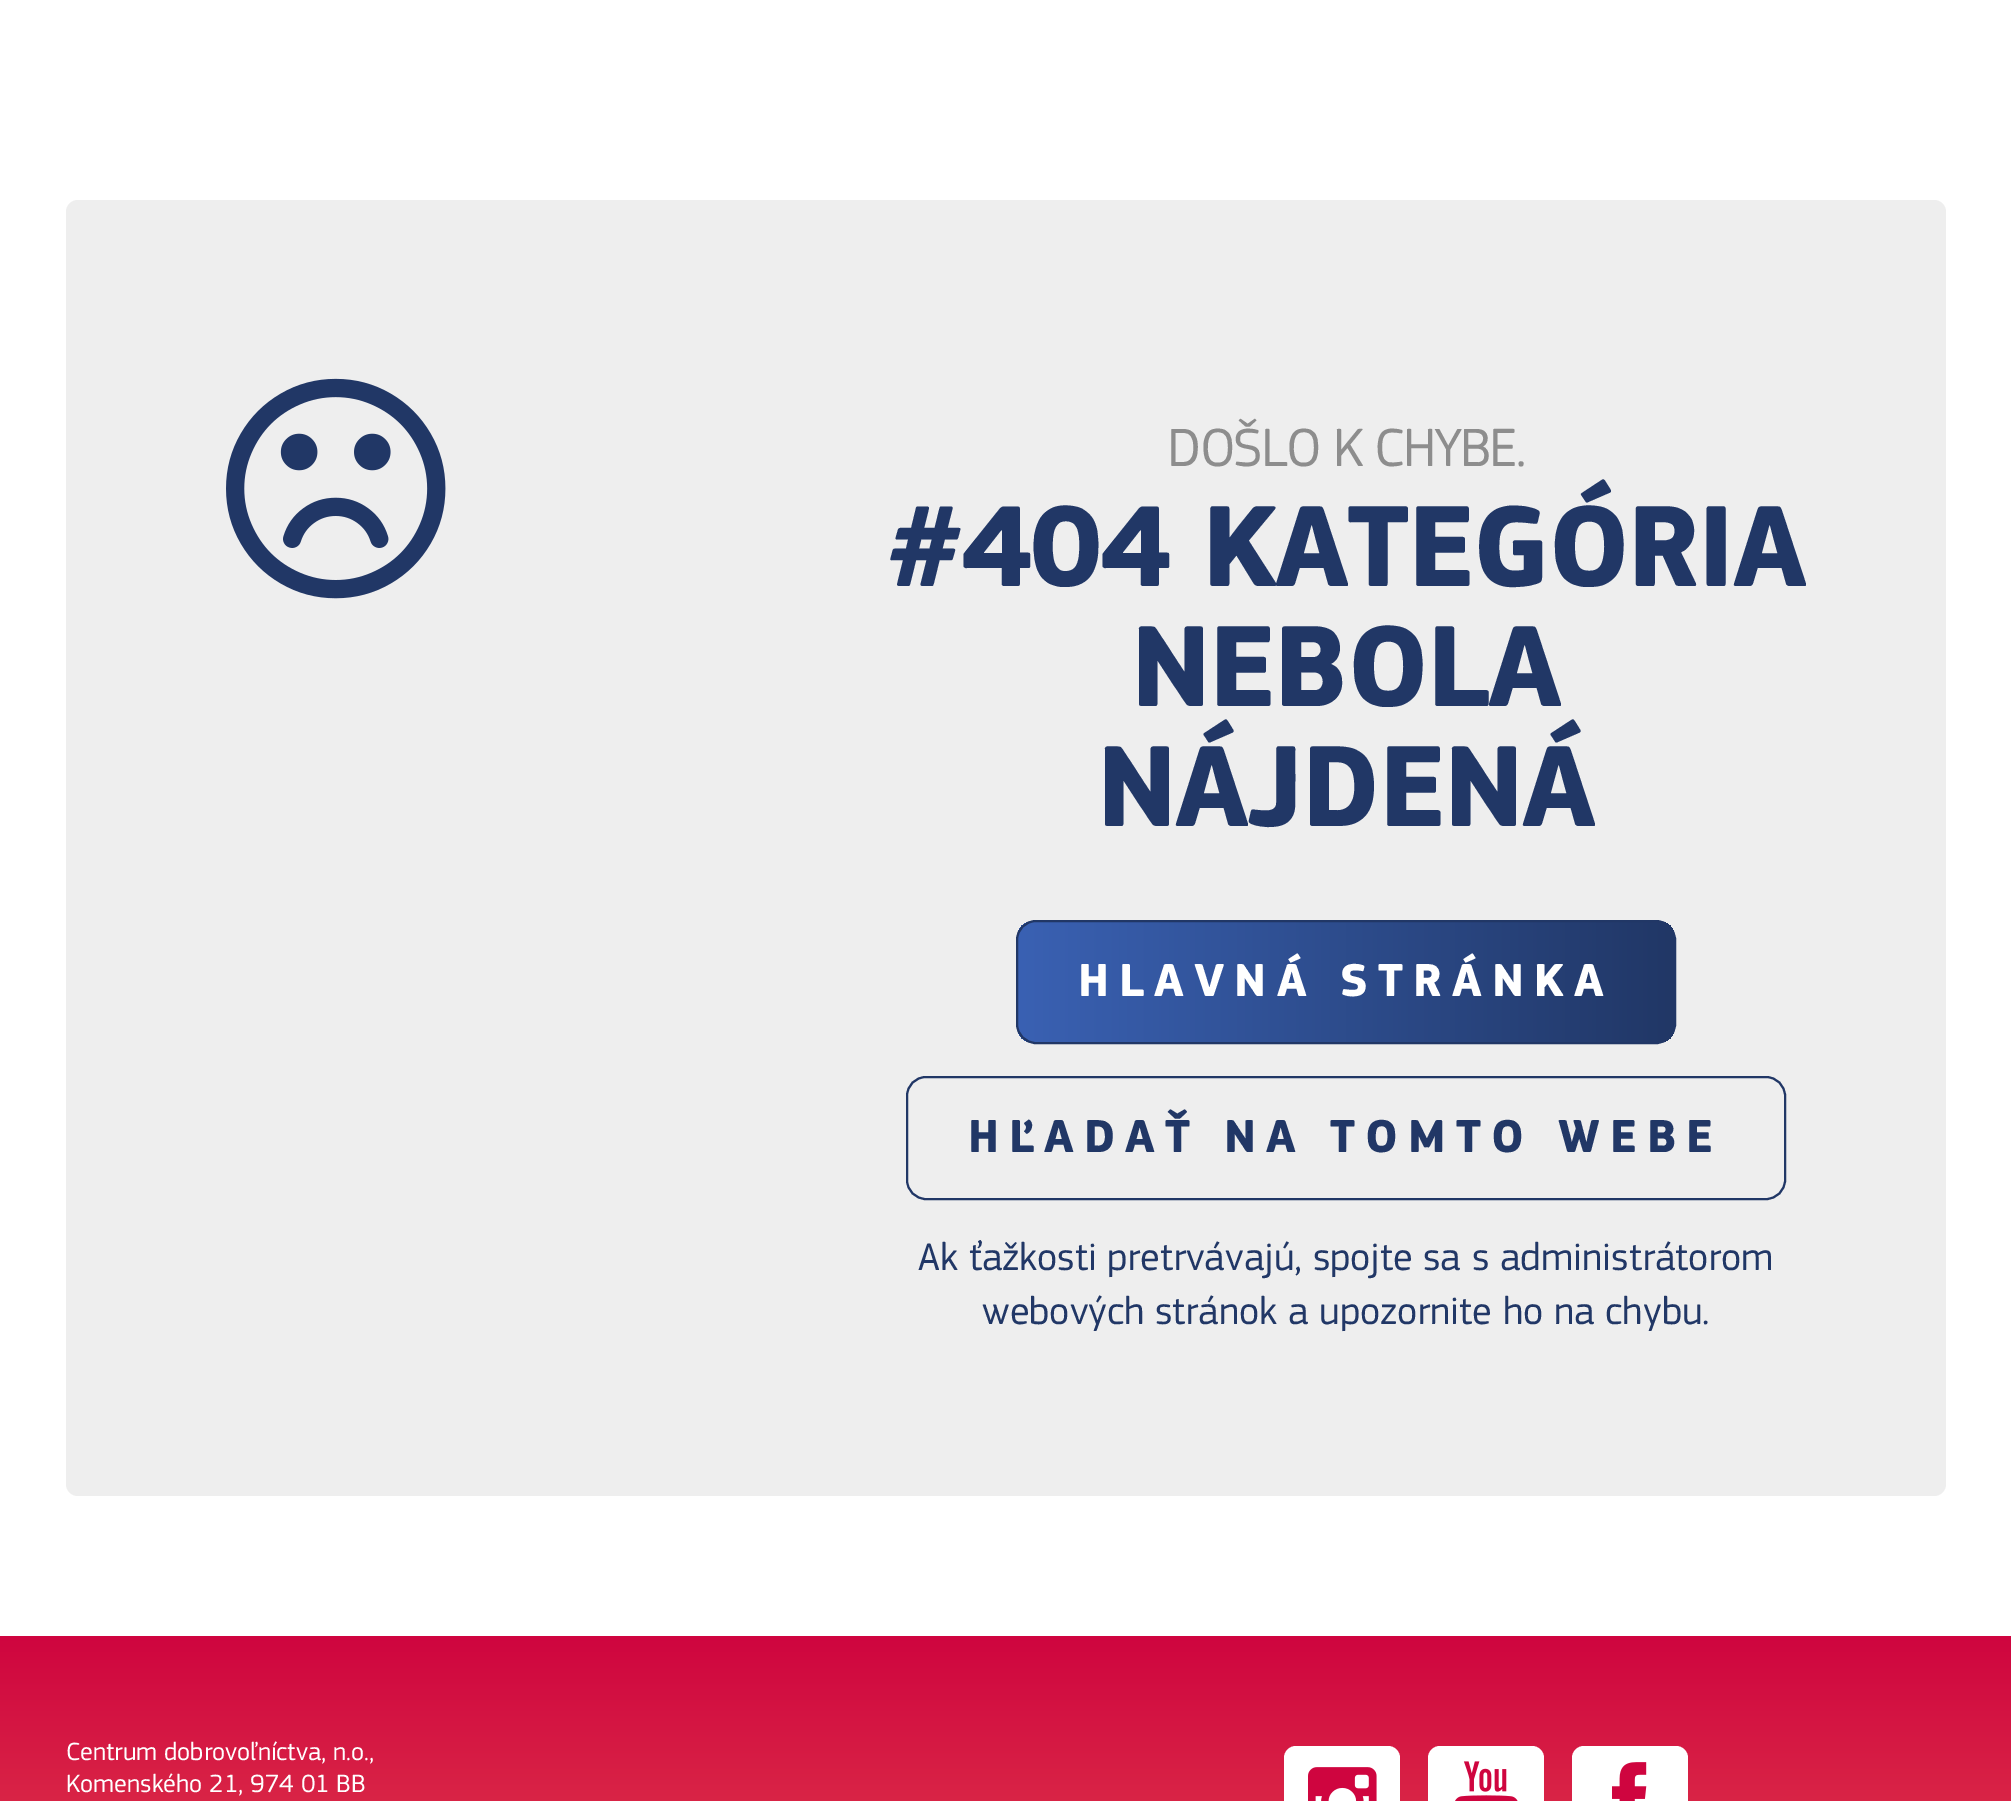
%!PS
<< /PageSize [2011 1801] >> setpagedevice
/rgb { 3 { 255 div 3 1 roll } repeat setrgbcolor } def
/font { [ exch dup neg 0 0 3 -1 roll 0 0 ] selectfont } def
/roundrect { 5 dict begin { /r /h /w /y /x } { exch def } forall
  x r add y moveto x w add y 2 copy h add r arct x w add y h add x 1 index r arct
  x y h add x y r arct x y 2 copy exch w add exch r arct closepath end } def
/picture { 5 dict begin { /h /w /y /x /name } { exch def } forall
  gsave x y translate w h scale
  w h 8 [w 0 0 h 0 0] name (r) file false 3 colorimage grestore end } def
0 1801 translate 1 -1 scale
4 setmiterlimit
255 255 255 rgb
0 0 2011 1801 rectfill
238 238 238 rgb
66 200 1880 1296 12 roundrect fill
(img/1.rgb) 226 378 220 221 picture
gsave
1016 920 660 124 20 roundrect clip newpath
gsave 1018 922 moveto 1674 922 lineto 1674 1042 lineto 1018 1042 lineto closepath clip newpath
<< /ShadingType 2 /ColorSpace /DeviceRGB /Coords [1018 982 1674 982] /Extend [true true] /Function << /FunctionType 2 /Domain [0 1] /C0 [0.227 0.38 0.702] /C1 [0.129 0.216 0.4] /N 1 >> >> shfill grestore
grestore
33 55 102 rgb
2 setlinewidth
1017 921 658 122 19 roundrect stroke
907 1077 878 122 19 roundrect stroke
gsave 0 1636 moveto 2011 1636 lineto 2011 1801 lineto 0 1801 lineto closepath clip newpath
<< /ShadingType 2 /ColorSpace /DeviceRGB /Coords [1006 1636 1006 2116] /Extend [true true] /Function << /FunctionType 2 /Domain [0 1] /C0 [0.812 0.02 0.247] /C1 [0.922 0.373 0.329] /N 1 >> >> shfill grestore
255 255 255 rgb
1284 1746 116 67 12 roundrect fill
(img/2.rgb) 1308 1767 69 34 picture
1428 1746 116 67 12 roundrect fill
(img/3.rgb) 1455 1761 63 40 picture
1572 1746 116 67 12 roundrect fill
(img/4.rgb) 1612 1762 35 39 picture
/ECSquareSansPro-Regular 56 font
141 141 141 rgb
1167 466 moveto -2 0 (DOŠLO K CHYBE.) ashow
/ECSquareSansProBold-Bold 120 font
33 55 102 rgb
887 586 moveto -2 0 (#404 KATEGÓRIA) ashow
1131 706 moveto -2 0 (NEBOLA) ashow
1097 826 moveto -2 0 (NÁJDENÁ) ashow
/ECSquareSansProBold-Bold 48 font
255 255 255 rgb
1078 996 moveto 10 0 (HLAVNÁ STRÁNKA) ashow
33 55 102 rgb
968 1152 moveto 10 0 (HĽADAŤ NA TOMTO WEBE) ashow
/ECSquareSansPro-Regular 40 font
918 1270 moveto (Ak ťažkosti pretrvávajú, spojte sa s administrátorom) show
982 1324 moveto (webových stránok a upozornite ho na chybu.) show
/ECSquareSansPro-Regular 26 font
255 255 255 rgb
66 1760 moveto (Centrum dobrovoľníctva, n.o.,) show
66 1792 moveto (Komenského 21, 974 01 BB) show
showpage
